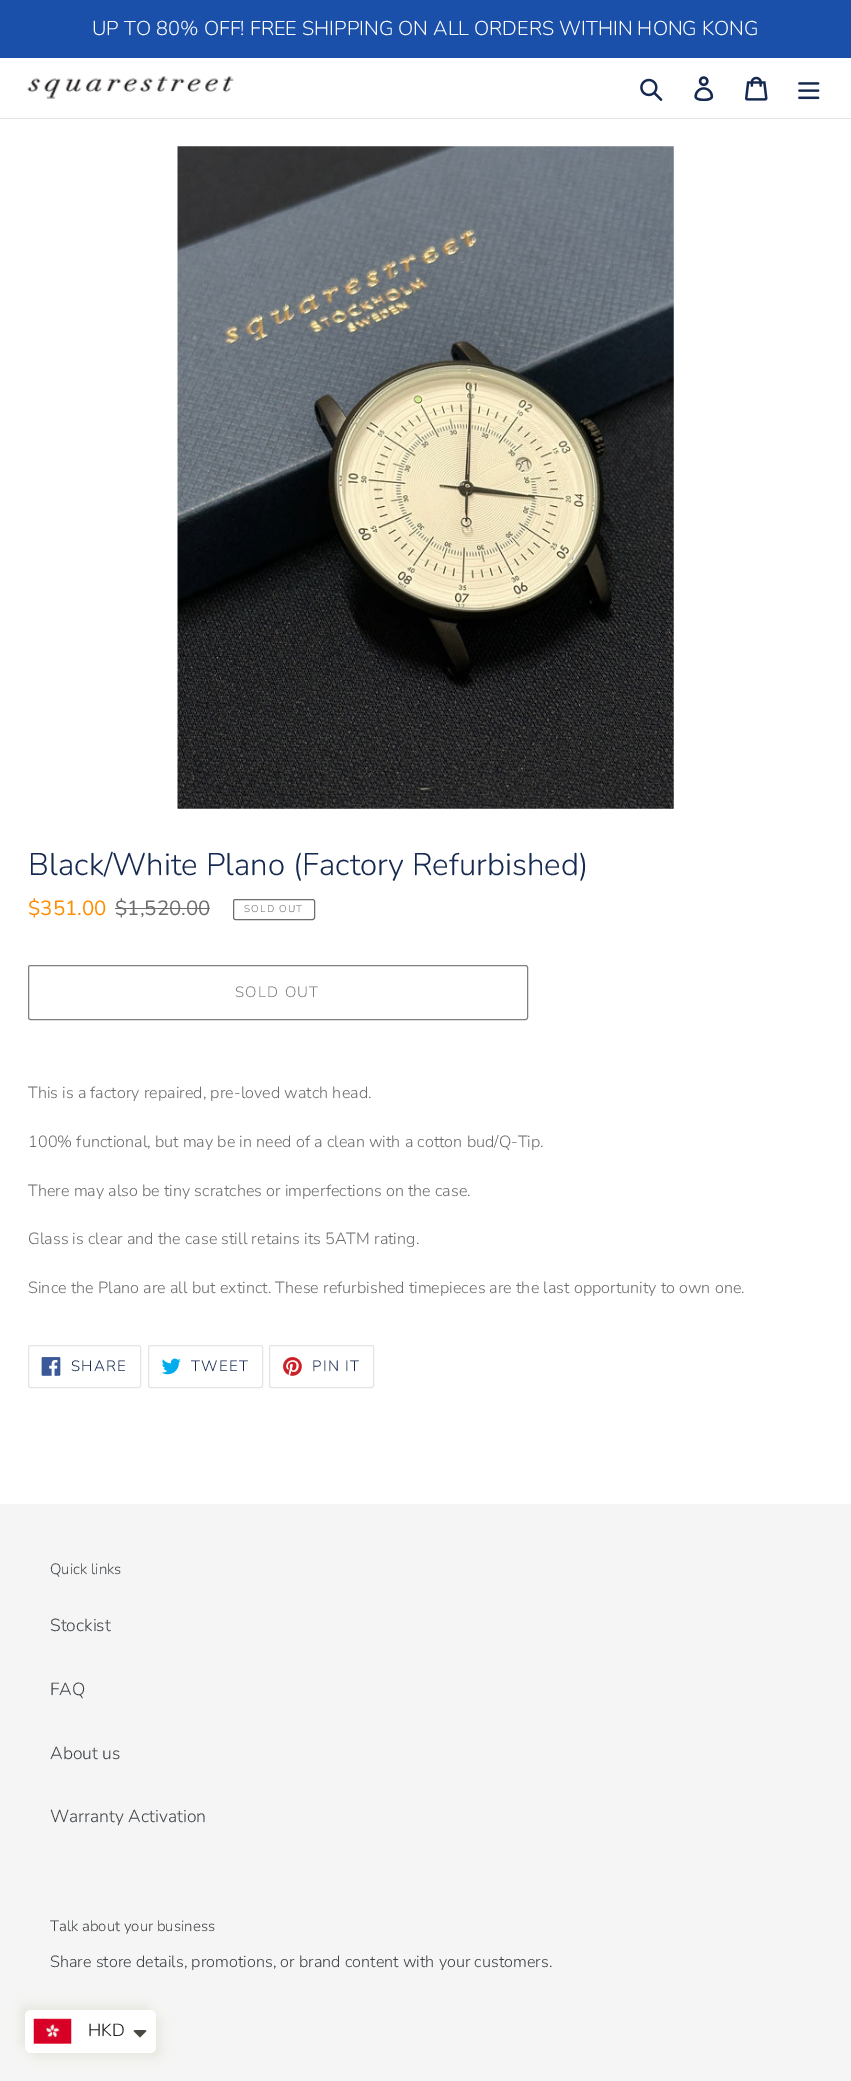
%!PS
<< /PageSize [851 2081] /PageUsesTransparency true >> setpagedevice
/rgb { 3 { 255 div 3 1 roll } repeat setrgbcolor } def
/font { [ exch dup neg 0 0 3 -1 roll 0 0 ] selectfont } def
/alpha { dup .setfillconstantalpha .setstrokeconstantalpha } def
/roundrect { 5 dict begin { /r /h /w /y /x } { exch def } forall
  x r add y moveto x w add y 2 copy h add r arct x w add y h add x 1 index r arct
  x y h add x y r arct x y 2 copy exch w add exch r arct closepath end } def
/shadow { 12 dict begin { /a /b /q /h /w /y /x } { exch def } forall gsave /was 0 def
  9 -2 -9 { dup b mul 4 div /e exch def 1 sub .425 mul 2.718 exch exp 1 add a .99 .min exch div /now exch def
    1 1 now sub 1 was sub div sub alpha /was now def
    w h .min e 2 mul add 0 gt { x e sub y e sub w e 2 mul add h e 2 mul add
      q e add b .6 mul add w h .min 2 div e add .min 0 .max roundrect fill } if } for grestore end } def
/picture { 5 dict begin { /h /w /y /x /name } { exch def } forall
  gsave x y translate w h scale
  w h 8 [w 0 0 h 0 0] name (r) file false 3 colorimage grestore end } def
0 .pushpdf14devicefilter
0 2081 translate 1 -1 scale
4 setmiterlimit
255 255 255 rgb
0 0 851 2081 rectfill
27 80 170 rgb
0 0 851 58 rectfill
228 228 228 rgb
0 118 851 1 rectfill
(img/1.rgb) 27 76 207 23 picture
(img/2.rgb) 640 78 23 23 picture
(img/3.rgb) 694 76 20 25 picture
(img/4.rgb) 745 76 23 25 picture
(img/5.rgb) 798 82 22 18 picture
(img/6.rgb) 177 146 497 663 picture
109 109 109 rgb
115 908 95 1 rectfill
233.5 899.5 81 20 2 roundrect stroke
128 128 128 rgb
28.5 965.5 499 54 2 roundrect stroke
228 228 228 rgb
28.5 1345.5 112 42 2 roundrect stroke
(img/7.rgb) 41 1357 20 19 picture
148.5 1345.5 114 42 2 roundrect stroke
(img/8.rgb) 161 1358 20 17 picture
269.5 1345.5 104 42 2 roundrect stroke
(img/9.rgb) 283 1357 19 19 picture
245 245 245 rgb
0 1504 851 577 rectfill
232 232 226 rgb
20 2005 131 43 6 5.5 1 shadow
30 2015 131 43 6 5.5 1 shadow
255 255 255 rgb
25 2010 131 43 6 roundrect fill
(img/10.rgb) 33 2018 39 26 picture
71 73 66 rgb
136 2030 moveto 135 2030 134 2030.5 133.5 2031 curveto 140 2037.5 lineto 146.5 2031 lineto 146 2030.5 145 2030 144 2030 curveto closepath fill
/Nunito-Light 20 font
255 255 255 rgb
92 35 moveto (UP TO 80% OFF! FREE SHIPPING ON ALL ORDERS WITHIN HONG KONG) show
/Nunito-Light 31.25 font
22 41 80 rgb
28 875 moveto (Black/White Plano \(Factory Refurbished\)) show
/Nunito-Regular 20.5 font
255 140 0 rgb
28 915 moveto ($351.00) show
109 109 109 rgb
115 915 moveto ($1,520.00) show
/Nunito-Light 10 font
244 912 moveto 1.25 0 (SOLD OUT) ashow
/Nunito-Light 15 font
128 128 128 rgb
235 997 moveto 1.25 0 (SOLD OUT) ashow
/Nunito-Light 16.25 font
109 109 109 rgb
[
  [(This is a factory repaired, pre-loved watch head.) 28 1098]
  [(100% functional, but may be in need of a clean with a cotton bud/Q-Tip.) 28 1147]
  [(There may also be tiny scratches or imperfections on the case.) 28 1196]
  [(Glass is clear and the case still retains its 5ATM rating.) 28 1244]
  [(Since the Plano are all but extinct. These refurbished timepieces are the last opportunity to own one.) 28 1293]
] { aload pop moveto show } forall
/Nunito-Light 15 font
22 41 80 rgb
71 1371 moveto 1.25 0 (SHARE) ashow
191 1371 moveto 1.25 0 (TWEET) ashow
312 1371 moveto 1.25 0 (PIN IT) ashow
61 66 70 rgb
50 1574 moveto (Quick links) show
/Nunito-Light 17.5 font
[
  [(Stockist) 50 1631]
  [(FAQ) 50 1695]
  [(About us) 50 1759]
  [(Warranty Activation) 50 1822]
] { aload pop moveto show } forall
/Nunito-Light 15 font
50 1931 moveto (Talk about your business) show
/Nunito-Light 16.25 font
50 1967 moveto (Share store details, promotions, or brand content with your customers.) show
/Nunito-Light 17.5 font
30 30 30 rgb
88 2036 moveto (HKD) show
.poppdf14devicefilter showpage
